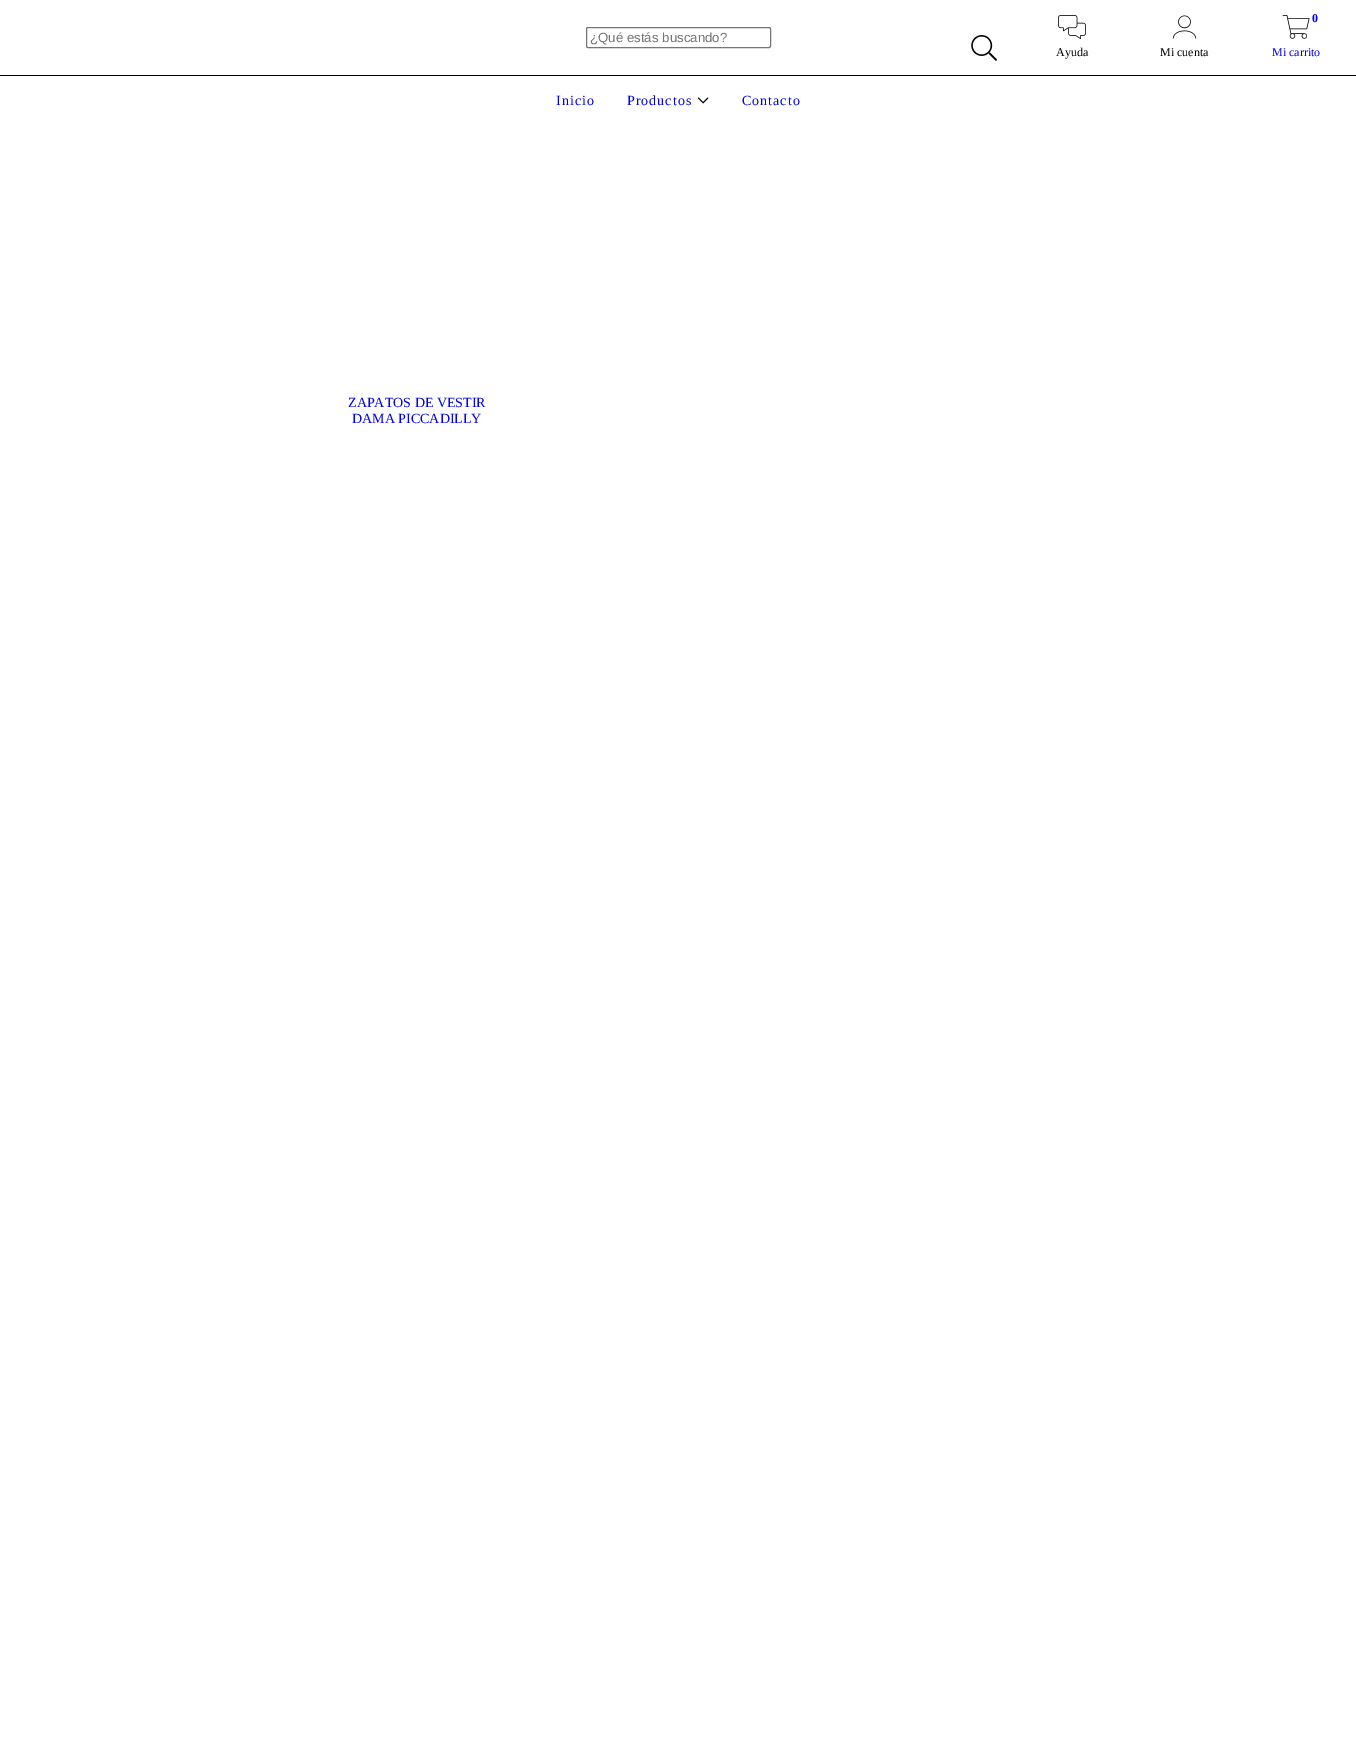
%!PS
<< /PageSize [1356 1739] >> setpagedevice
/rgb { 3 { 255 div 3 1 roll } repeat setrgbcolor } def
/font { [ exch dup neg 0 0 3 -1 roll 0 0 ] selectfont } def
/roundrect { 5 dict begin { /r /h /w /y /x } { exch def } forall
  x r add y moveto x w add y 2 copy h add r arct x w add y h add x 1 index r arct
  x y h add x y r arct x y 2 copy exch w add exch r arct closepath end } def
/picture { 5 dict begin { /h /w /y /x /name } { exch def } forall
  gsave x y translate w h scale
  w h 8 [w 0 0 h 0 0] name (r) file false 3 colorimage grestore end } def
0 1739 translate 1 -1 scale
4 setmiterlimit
255 255 255 rgb
0 0 1356 1739 rectfill
118 118 118 rgb
586.5 27.5 184 20 1.5 roundrect stroke
(img/1.rgb) 971 35 26 26 picture
(img/2.rgb) 1058 15 28 24 picture
(img/3.rgb) 1172 15 25 24 picture
(img/4.rgb) 1282 15 28 24 picture
0 0 0 rgb
0 75 1356 1 rectfill
(img/5.rgb) 697 97 12 7 picture
/LiberationSans-Regular 13.25 font
117 117 117 rgb
590 42 moveto (¿Qué estás buscando?) show
/LiberationSerif-Regular 12 font
0 0 0 rgb
1056 56 moveto (Ayuda) show
1160 56 moveto (Mi cuenta) show
/LiberationSerif-Bold 12 font
0 0 238 rgb
1312 22 moveto (0) show
/LiberationSerif-Regular 12 font
1272 56 moveto (Mi carrito) show
/LiberationSerif-Regular 14 font
556 105 moveto 1 0 (Inicio) ashow
627 105 moveto 1 0 (Productos) ashow
742 105 moveto 1 0 (Contacto) ashow
348 407 moveto (ZAPATOS DE VESTIR) show
352 423 moveto (DAMA PICCADILLY) show
showpage
